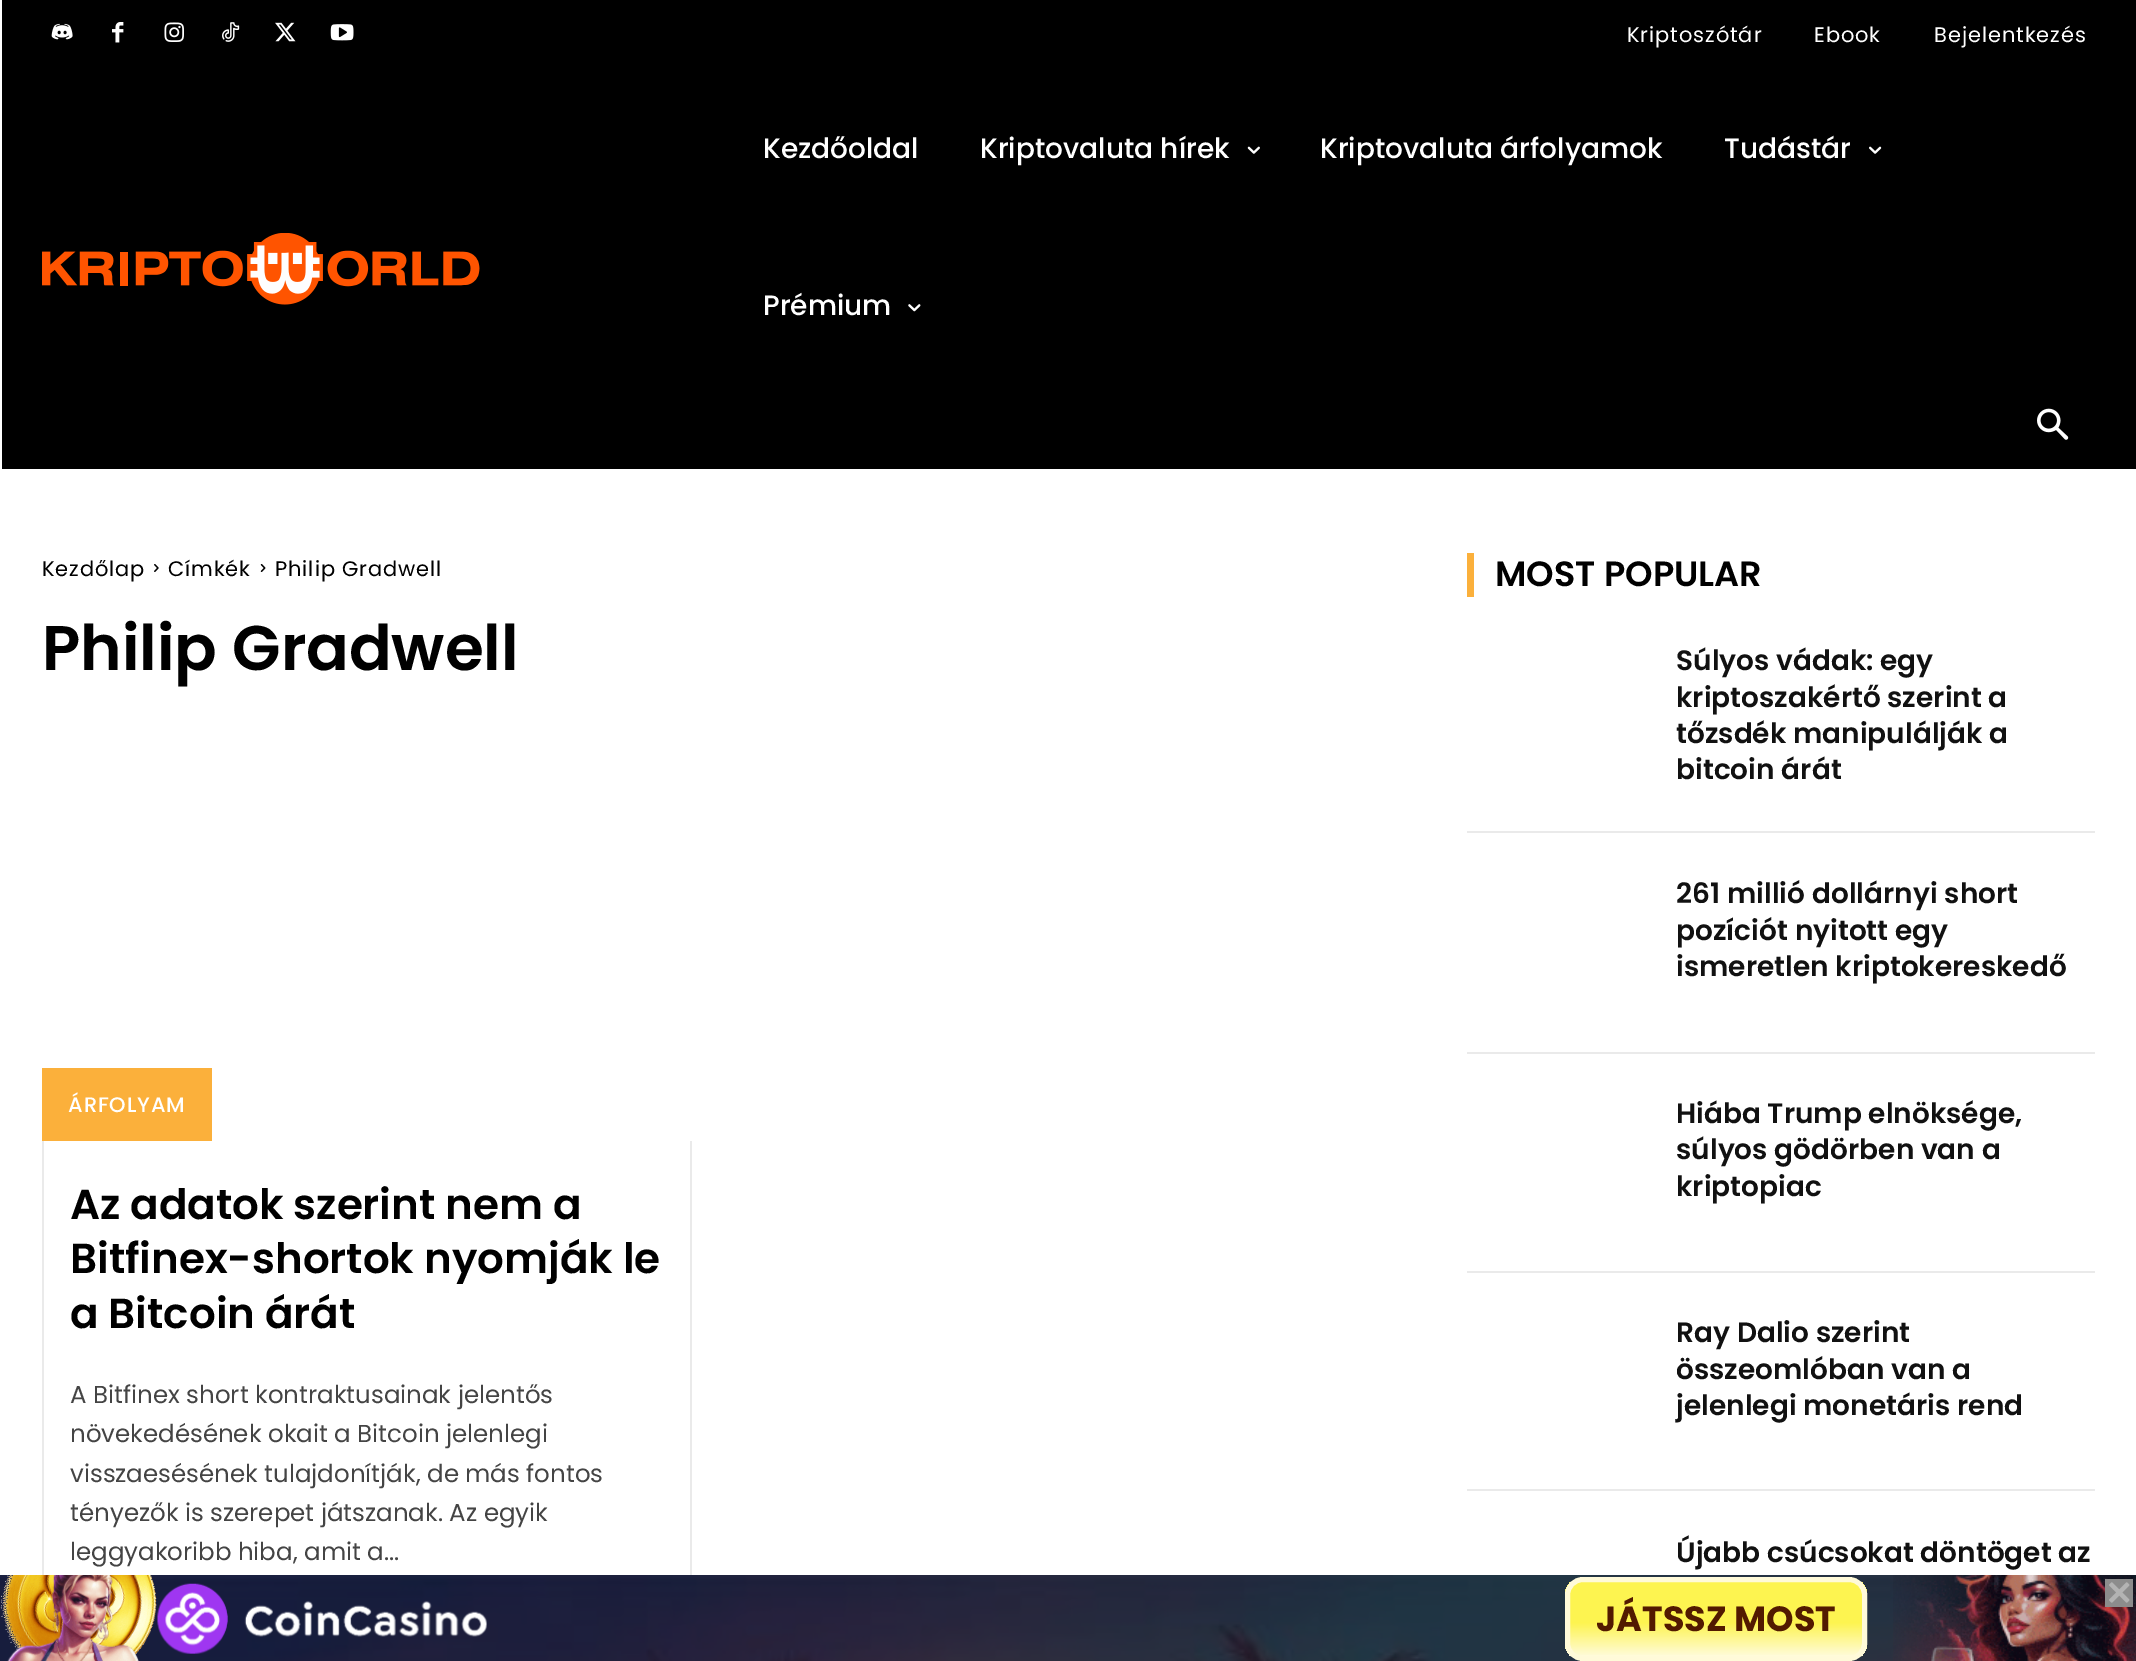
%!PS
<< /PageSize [2136 1661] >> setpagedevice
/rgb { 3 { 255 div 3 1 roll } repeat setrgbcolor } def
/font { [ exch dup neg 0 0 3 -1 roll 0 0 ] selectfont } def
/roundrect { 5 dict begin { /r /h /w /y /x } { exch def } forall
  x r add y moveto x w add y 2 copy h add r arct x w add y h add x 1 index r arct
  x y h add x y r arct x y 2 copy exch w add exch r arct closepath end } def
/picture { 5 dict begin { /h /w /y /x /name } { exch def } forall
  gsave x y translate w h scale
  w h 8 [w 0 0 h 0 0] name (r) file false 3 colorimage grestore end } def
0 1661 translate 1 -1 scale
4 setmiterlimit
255 255 255 rgb
0 0 2136 1661 rectfill
0 0 0 rgb
2 0 2134 469 rectfill
(img/1.rgb) 51 23 22 17 picture
(img/2.rgb) 112 22 12 21 picture
(img/3.rgb) 164 22 20 20 picture
(img/4.rgb) 222 22 18 20 picture
(img/5.rgb) 275 22 21 20 picture
(img/6.rgb) 330 24 24 17 picture
(img/7.rgb) 42 233 438 72 picture
(img/8.rgb) 1247 146 13 8 picture
(img/9.rgb) 1869 146 13 8 picture
(img/10.rgb) 908 304 13 8 picture
(img/11.rgb) 2037 408 32 32 picture
(img/12.rgb) 154 564 5 8 picture
(img/13.rgb) 260 564 6 8 picture
[
  [42 1068 170 73 251 176 59]
  [690 1141 2 434 234 234 234]
  [42 1141 2 434 234 234 234]
  [1467 553 7 44 251 176 59]
  [1467 831 628 2 234 234 234]
  [1467 1052 628 2 234 234 234]
  [1467 1271 628 2 234 234 234]
  [1467 1489 628 2 234 234 234]
  [0 1575 2136 86 7 7 10]
] { aload pop rgb rectfill } forall
(img/14.rgb) 0 1575 2136 86 picture
(img/15.rgb) 0 1575 157 86 picture
(img/16.rgb) 1893 1575 243 86 picture
140 140 140 rgb
2105 1579 28 28 rectfill
(img/17.rgb) 2109 1582 21 21 picture
(img/18.rgb) 157 1583 330 71 picture
gsave
1565 1577 302 84 18 roundrect clip newpath
gsave 1565 1582 moveto 1867 1582 lineto 1867 1656 lineto 1565 1656 lineto closepath clip newpath
<< /ShadingType 2 /ColorSpace /DeviceRGB /Coords [1716 1582 1716 1656] /Extend [true true] /Function << /FunctionType 3 /Domain [0 1] /Functions [<< /FunctionType 2 /Domain [0 1] /C0 [0.992 0.957 0.314] /C1 [0.992 0.957 0.314] /N 1 >> << /FunctionType 2 /Domain [0 1] /C0 [0.992 0.957 0.314] /C1 [1 0.984 0.851] /N 1 >>] /Bounds [0.55] /Encode [0 1 0 1] >> >> shfill grestore
grestore
255 250 217 rgb
5 setlinewidth
1567.5 1579.5 297 79 15.5 roundrect stroke
/Poppins-Regular 21 font
255 255 255 rgb
1627 42 moveto 0.9 0 (Kriptoszótár) ashow
1814 42 moveto 0.9 0 (Ebook) ashow
1934 42 moveto 0.9 0 (Bejelentkezés) ashow
/Poppins-Medium 28 font
[
  [(Kezdőoldal) 763 158]
  [(Kriptovaluta hírek) 980 158]
  [(Kriptovaluta árfolyamok) 1320 158]
  [(Tudástár) 1724 158]
  [(Prémium) 763 315]
] { aload pop moveto show } forall
/Poppins-Regular 21 font
0 0 0 rgb
42 576 moveto 0.9 0 (Kezdőlap) ashow
168 576 moveto 0.9 0 (Címkék) ashow
275 576 moveto 0.9 0 (Philip Gradwell) ashow
/Poppins-SemiBold 63 font
42 670 moveto (Philip Gradwell) show
/Poppins-Medium 21 font
255 255 255 rgb
68 1112 moveto 0.9 0 (ÁRFOLYAM) ashow
/Poppins-SemiBold 42 font
0 0 0 rgb
[
  [(Az adatok szerint nem a) 70 1219]
  [(Bitfinex-shortok nyomják le) 70 1273]
  [(a Bitcoin árát) 70 1328]
] { aload pop moveto show } forall
/Poppins-Regular 24.5 font
68 68 68 rgb
[
  [(A Bitfinex short kontraktusainak jelentős) 70 1403]
  [(növekedésének okait a Bitcoin jelenlegi) 70 1442]
  [(visszaesésének tulajdonítják, de más fontos) 70 1482]
  [(tényezők is szerepet játszanak. Az egyik) 70 1521]
  [(leggyakoribb hiba, amit a...) 70 1560]
] { aload pop moveto show } forall
/Poppins-SemiBold 35 font
0 0 0 rgb
1495 586 moveto (MOST POPULAR) show
/Poppins-SemiBold 28 font
17 17 17 rgb
[
  [(Súlyos vádak: egy) 1676 670]
  [(kriptoszakértő szerint a) 1676 707]
  [(tőzsdék manipulálják a) 1676 743]
  [(bitcoin árát) 1676 779]
  [(261 millió dollárnyi short) 1676 903]
  [(pozíciót nyitott egy) 1676 940]
  [(ismeretlen kriptokereskedő) 1676 976]
  [(Hiába Trump elnöksége,) 1676 1123]
  [(súlyos gödörben van a) 1676 1159]
  [(kriptopiac) 1676 1196]
  [(Ray Dalio szerint) 1676 1342]
  [(összeomlóban van a) 1676 1379]
  [(jelenlegi monetáris rend) 1676 1415]
  [(Újabb csúcsokat döntöget az) 1676 1562]
] { aload pop moveto show } forall
/Poppins-Bold 35 font
82 26 0 rgb
1596 1631 moveto (JÁTSSZ MOST) show
showpage
